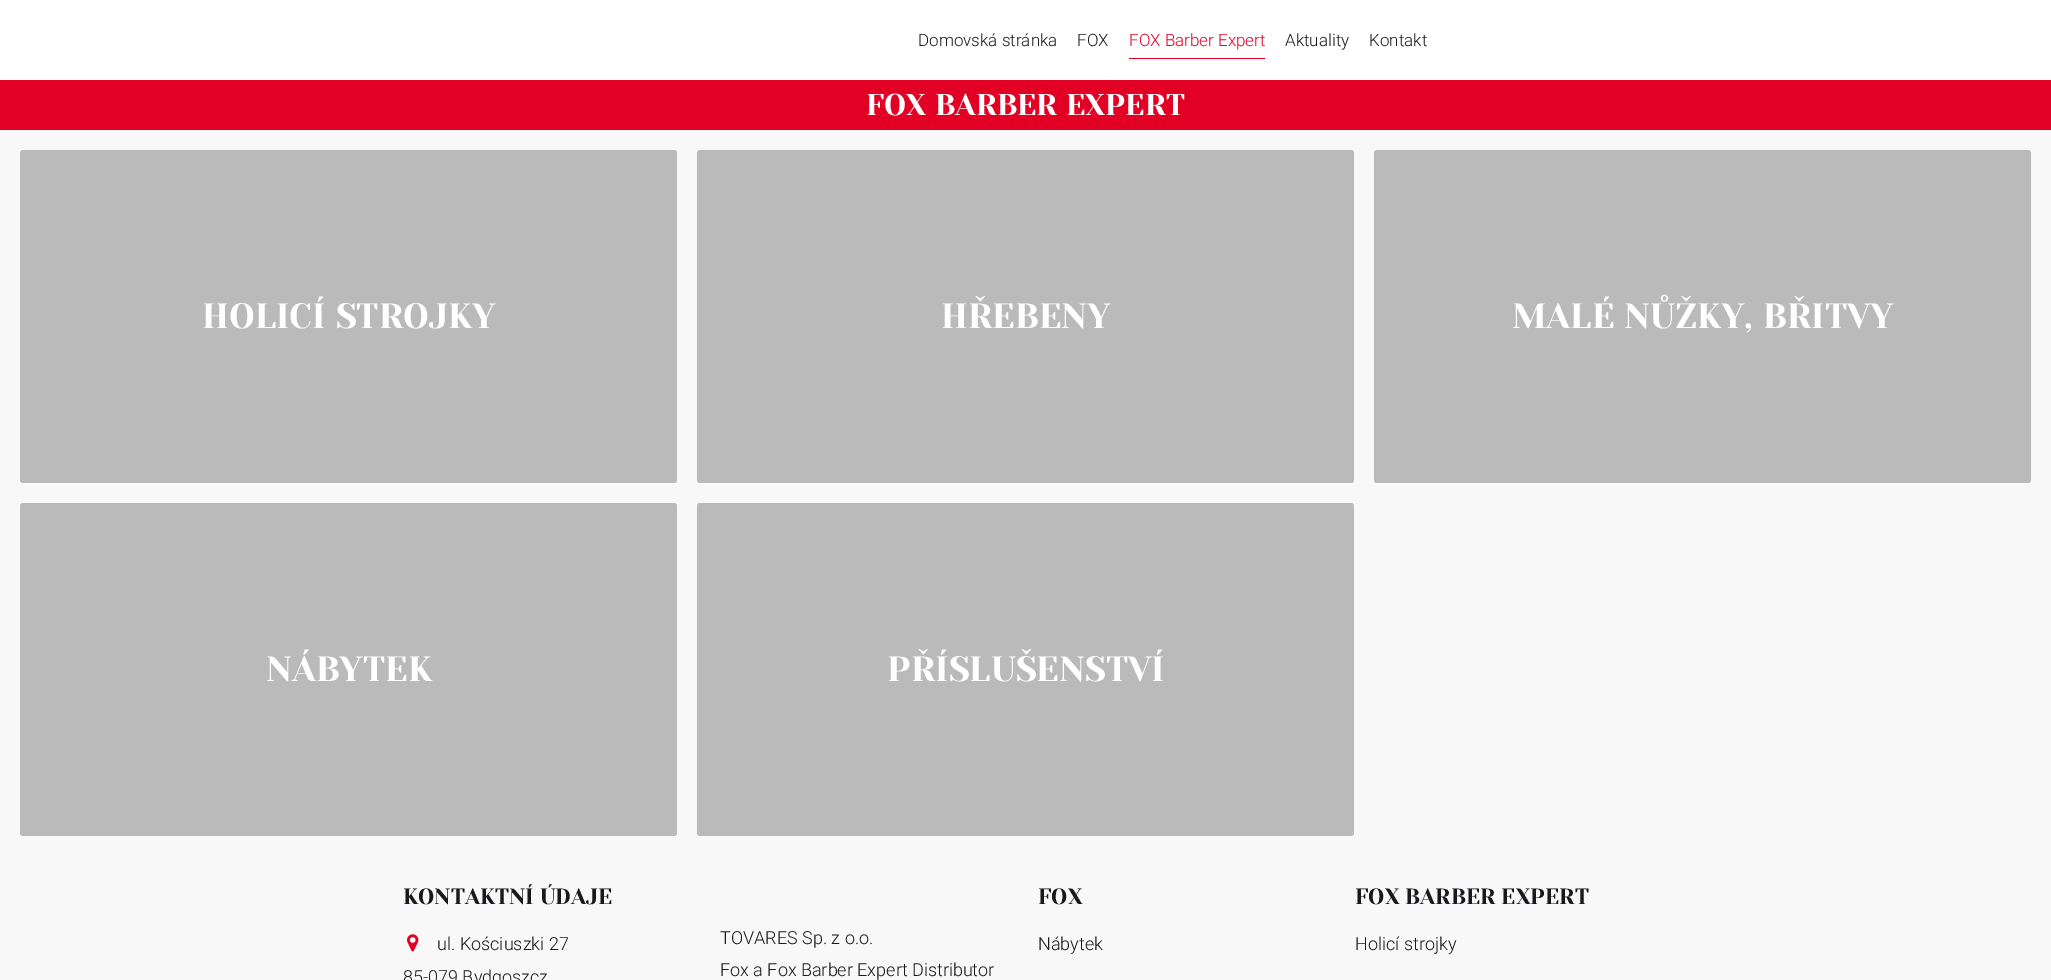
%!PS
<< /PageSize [2051 980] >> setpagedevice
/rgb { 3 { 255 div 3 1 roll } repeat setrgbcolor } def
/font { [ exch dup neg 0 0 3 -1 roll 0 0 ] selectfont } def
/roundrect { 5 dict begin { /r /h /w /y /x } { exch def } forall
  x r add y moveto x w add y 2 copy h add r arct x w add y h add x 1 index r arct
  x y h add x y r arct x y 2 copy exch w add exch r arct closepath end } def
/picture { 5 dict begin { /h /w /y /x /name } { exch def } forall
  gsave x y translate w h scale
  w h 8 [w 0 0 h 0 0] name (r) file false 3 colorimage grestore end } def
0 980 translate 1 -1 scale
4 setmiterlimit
255 255 255 rgb
0 0 2051 980 rectfill
[
  [1129 58 136 1 226 0 37]
  [0 130 2051 850 248 248 248]
  [0 80 2051 50 226 0 37]
] { aload pop rgb rectfill } forall
186 186 186 rgb
20 150 657 333 3 roundrect fill
697 150 657 333 3 roundrect fill
1374 150 657 333 3 roundrect fill
20 503 657 333 3 roundrect fill
697 503 657 333 3 roundrect fill
(img/1.rgb) 407 934 12 18 picture
/Roboto-Light 17 font
26 24 28 rgb
918 46 moveto (Domovská stránka) show
1077 46 moveto (FOX) show
226 0 37 rgb
1129 46 moveto (FOX Barber Expert) show
26 24 28 rgb
1285 46 moveto (Aktuality) show
1369 46 moveto (Kontakt) show
/YesevaOne-Regular 30 font
255 255 255 rgb
866 115 moveto (FOX BARBER EXPERT) show
/YesevaOne-Regular 35 font
[
  [(HOLICÍ STROJKY) 202 328]
  [(HŘEBENY) 941 328]
  [(MALÉ NŮŽKY, BŘITVY) 1512 328]
  [(NÁBYTEK) 266 681]
  [(PŘÍSLUŠENSTVÍ) 887 681]
] { aload pop moveto show } forall
/YesevaOne-Regular 22 font
26 24 28 rgb
403 904 moveto (KONTAKTNÍ ÚDAJE) show
/Roboto-Light 18 font
[
  [(ul. Kościuszki 27) 437 950]
  [(85-079 Bydgoszcz) 403 983]
  [(TOVARES Sp. z o.o.) 720 944]
  [(Fox a Fox Barber Expert Distributor) 720 976]
] { aload pop moveto show } forall
/YesevaOne-Regular 22 font
1038 904 moveto (FOX) show
/Roboto-Light 18 font
1038 950 moveto (Nábytek) show
/YesevaOne-Regular 22 font
1355 904 moveto (FOX BARBER EXPERT) show
/Roboto-Light 18 font
1355 950 moveto (Holicí strojky) show
showpage
